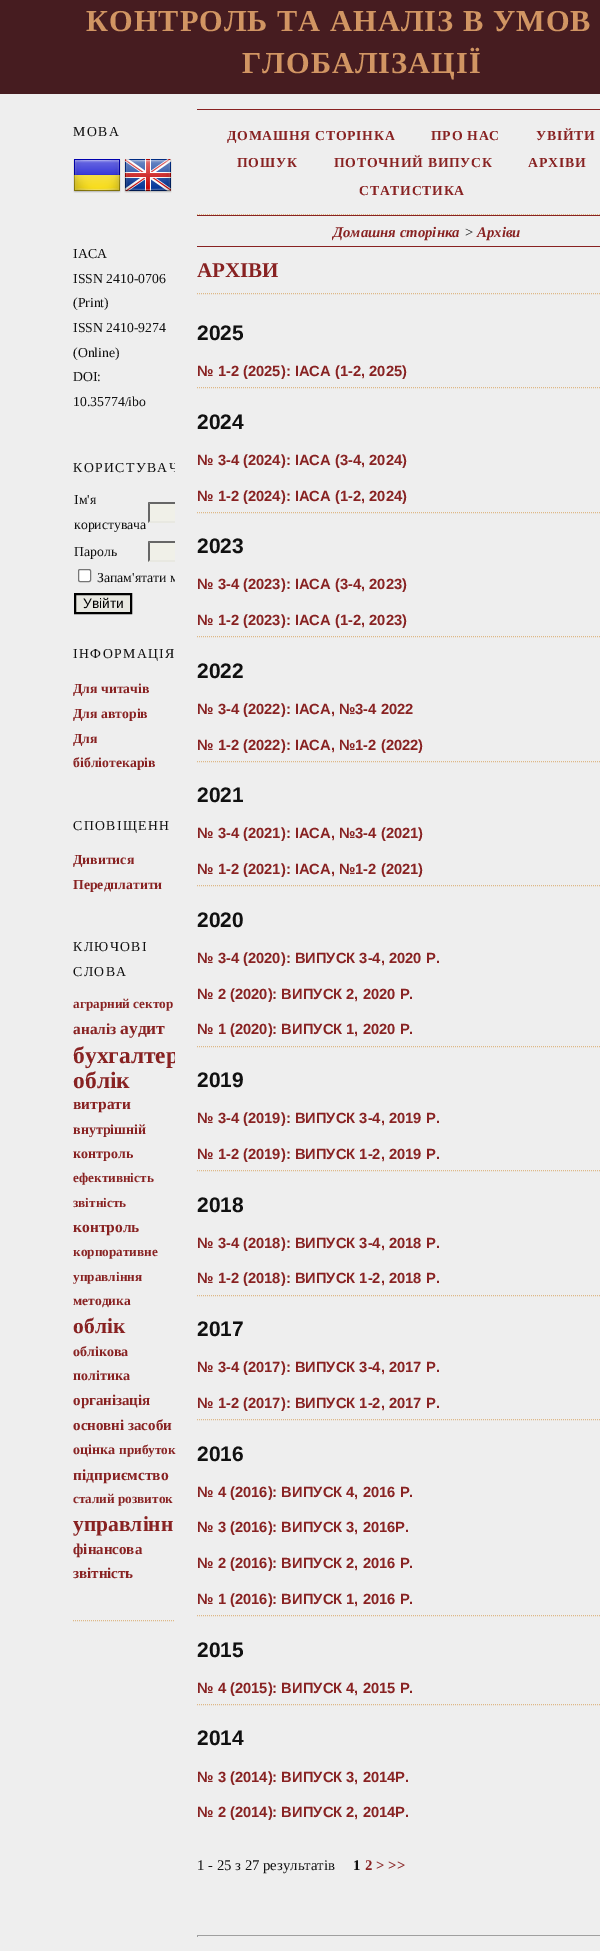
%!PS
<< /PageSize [600 1951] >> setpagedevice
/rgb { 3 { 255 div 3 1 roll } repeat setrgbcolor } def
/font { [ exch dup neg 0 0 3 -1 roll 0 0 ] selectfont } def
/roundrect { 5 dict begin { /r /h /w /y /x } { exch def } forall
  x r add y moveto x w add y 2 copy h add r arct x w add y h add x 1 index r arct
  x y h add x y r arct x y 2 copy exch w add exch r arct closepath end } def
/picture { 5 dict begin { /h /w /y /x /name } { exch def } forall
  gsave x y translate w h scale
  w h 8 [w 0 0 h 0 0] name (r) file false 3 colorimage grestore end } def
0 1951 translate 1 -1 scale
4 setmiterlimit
238 238 238 rgb
0 0 600 1951 rectfill
70 28 32 rgb
0 0 600 94 rectfill
222 184 135 rgb
[1 1] 0 setdash
73 1620.5 moveto 175 1620.5 lineto stroke
(img/1.rgb) 73 159 48 34 picture
(img/2.rgb) 124 159 48 34 picture
240 240 232 rgb
148 502 27 21 rectfill
gsave
73 99 102 1521 rectclip
102 102 102 rgb
148 502 moveto 269 502 lineto 267 504 lineto 150 504 lineto closepath fill
232 232 225 rgb
269 523 moveto 148 523 lineto 150 521 lineto 267 521 lineto closepath fill
grestore
102 102 102 rgb
148 523 moveto 148 502 lineto 150 504 lineto 150 521 lineto closepath fill
240 240 232 rgb
148 541 27 21 rectfill
gsave
73 99 102 1521 rectclip
102 102 102 rgb
148 541 moveto 269 541 lineto 267 543 lineto 150 543 lineto closepath fill
232 232 225 rgb
269 562 moveto 148 562 lineto 150 560 lineto 267 560 lineto closepath fill
grestore
102 102 102 rgb
148 562 moveto 148 541 lineto 150 543 lineto 150 560 lineto closepath fill
255 255 255 rgb
78.5 569.5 12 12 1.5 roundrect gsave fill grestore
118 118 118 rgb
[] 0 setdash
stroke
232 232 225 rgb
75 594 moveto 131 594 lineto 131 613 lineto 75 613 lineto closepath gsave fill grestore
0 0 0 rgb
2 setlinewidth
stroke
136 34 34 rgb
197 109 403 1 rectfill
222 184 135 rgb
1 setlinewidth
[1 1] 0 setdash
197 214.5 moveto 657 214.5 lineto stroke
136 34 34 rgb
197 215 403 1 rectfill
197 246 403 1 rectfill
222 184 135 rgb
197 293.5 moveto 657 293.5 lineto stroke
197 387.5 moveto 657 387.5 lineto stroke
197 512.5 moveto 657 512.5 lineto stroke
197 636.5 moveto 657 636.5 lineto stroke
197 761.5 moveto 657 761.5 lineto stroke
197 885.5 moveto 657 885.5 lineto stroke
197 1046.5 moveto 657 1046.5 lineto stroke
197 1170.5 moveto 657 1170.5 lineto stroke
197 1295.5 moveto 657 1295.5 lineto stroke
197 1419.5 moveto 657 1419.5 lineto stroke
197 1615.5 moveto 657 1615.5 lineto stroke
197 1704.5 moveto 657 1704.5 lineto stroke
159 159 159 rgb
197 1935 403 1 rectfill
197 1935 1 2 rectfill
/LiberationSerif-Bold 30.4 font
209 149 99 rgb
86 31 moveto 1 0 (КОНТРОЛЬ ТА АНАЛІЗ В УМОВ) ashow
242 73 moveto 1 0 (ГЛОБАЛІЗАЦІЇ) ashow
/LiberationSerif-Regular 13.75 font
17 17 17 rgb
73 136 moveto 1.4 0 (МОВА) ashow
[
  [(IACA) 73 258]
  [(ISSN 2410-0706) 73 283]
  [(\(Print\)) 73 307]
  [(ISSN 2410-9274) 73 332]
  [(\(Online\)) 73 357]
  [(DOI:) 73 381]
  [(10.35774/ibo) 73 406]
] { aload pop moveto show } forall
gsave
73 99 102 1521 rectclip
73 472 moveto 1.4 0 (КОРИСТУВАЧ) ashow
grestore
[
  [(Ім'я) 74 504]
  [(користувача) 74 529]
  [(Пароль) 74 556]
] { aload pop moveto show } forall
gsave
73 99 102 1521 rectclip
97 582 moveto (Запам'ятати м) show
grestore
/LiberationSans-Regular 13.75 font
0 0 0 rgb
83 608 moveto (Увійти) show
/LiberationSerif-Regular 13.75 font
17 17 17 rgb
73 658 moveto 1.4 0 (ІНФОРМАЦІЯ) ashow
/LiberationSerif-Bold 13.75 font
136 34 34 rgb
[
  [(Для читачів) 73 693]
  [(Для авторів) 73 718]
  [(Для) 73 743]
  [(бібліотекарів) 73 767]
] { aload pop moveto show } forall
/LiberationSerif-Regular 13.75 font
17 17 17 rgb
73 830 moveto 1.4 0 (СПОВІЩЕНН) ashow
/LiberationSerif-Bold 13.75 font
136 34 34 rgb
73 864 moveto (Дивитися) show
73 889 moveto (Передплатити) show
/LiberationSerif-Regular 13.75 font
17 17 17 rgb
73 951 moveto 1.4 0 (КЛЮЧОВІ) ashow
73 976 moveto 1.4 0 (СЛОВА) ashow
/LiberationSerif-Bold 13.25 font
136 34 34 rgb
73 1008 moveto (аграрний сектор) show
/LiberationSerif-Bold 15.5 font
73 1034 moveto (аналіз) show
/LiberationSerif-Bold 17.5 font
120 1034 moveto (аудит) show
gsave
73 99 102 1521 rectclip
/LiberationSerif-Bold 23.5 font
73 1063 moveto (бухгалтер) show
grestore
/LiberationSerif-Bold 23.5 font
73 1088 moveto (облік) show
/LiberationSerif-Bold 15.5 font
73 1109 moveto (витрати) show
/LiberationSerif-Bold 14 font
73 1134 moveto (внутрішній) show
73 1158 moveto (контроль) show
/LiberationSerif-Bold 13.25 font
73 1182 moveto (ефективність) show
73 1207 moveto (звітність) show
/LiberationSerif-Bold 15.5 font
73 1232 moveto (контроль) show
/LiberationSerif-Bold 13.25 font
73 1256 moveto (корпоративне) show
73 1281 moveto (управління) show
/LiberationSerif-Bold 13.5 font
73 1305 moveto (методика) show
/LiberationSerif-Bold 21.5 font
73 1333 moveto (облік) show
/LiberationSerif-Bold 14 font
73 1356 moveto (облікова) show
73 1380 moveto (політика) show
/LiberationSerif-Bold 15 font
73 1405 moveto (організація) show
73 1430 moveto (основні засоби) show
/LiberationSerif-Bold 14 font
73 1454 moveto (оцінка) show
/LiberationSerif-Bold 13.25 font
119 1454 moveto (прибуток) show
/LiberationSerif-Bold 15.5 font
73 1480 moveto (підприємство) show
/LiberationSerif-Bold 13.25 font
73 1503 moveto (сталий розвиток) show
/LiberationSerif-Bold 21.5 font
73 1531 moveto (управлінн) show
/LiberationSerif-Bold 15 font
73 1554 moveto (фінансова) show
73 1578 moveto (звітність) show
/LiberationSerif-Bold 13.75 font
227 140 moveto 0.75 0 (ДОМАШНЯ СТОРІНКА) ashow
431 140 moveto 0.75 0 (ПРО НАС) ashow
536 140 moveto 0.75 0 (УВІЙТИ) ashow
237 167 moveto 0.75 0 (ПОШУК) ashow
334 167 moveto 0.75 0 (ПОТОЧНИЙ ВИПУСК) ashow
528 167 moveto 0.75 0 (АРХІВИ) ashow
359 195 moveto 0.75 0 (СТАТИСТИКА) ashow
/LiberationSerif-BoldItalic 14.75 font
333 237 moveto (Домашня сторінка) show
/LiberationSerif-Italic 14.75 font
17 17 17 rgb
464 237 moveto (>) show
/LiberationSerif-BoldItalic 14.75 font
136 34 34 rgb
477 237 moveto (Архіви) show
/LiberationSerif-Bold 21 font
197 277 moveto (АРХІВИ) show
/LiberationSans-Bold 21 font
17 17 17 rgb
197 340 moveto (2025) show
/LiberationSans-Bold 14.75 font
136 34 34 rgb
197 376 moveto (№ 1-2 \(2025\): IACA \(1-2, 2025\)) show
/LiberationSans-Bold 21 font
17 17 17 rgb
197 429 moveto (2024) show
/LiberationSans-Bold 14.75 font
136 34 34 rgb
197 465 moveto (№ 3-4 \(2024\): IACA \(3-4, 2024\)) show
197 501 moveto (№ 1-2 \(2024\): IACA \(1-2, 2024\)) show
/LiberationSans-Bold 21 font
17 17 17 rgb
197 553 moveto (2023) show
/LiberationSans-Bold 14.75 font
136 34 34 rgb
197 589 moveto (№ 3-4 \(2023\): IACA \(3-4, 2023\)) show
197 625 moveto (№ 1-2 \(2023\): IACA \(1-2, 2023\)) show
/LiberationSans-Bold 21 font
17 17 17 rgb
197 678 moveto (2022) show
/LiberationSans-Bold 14.75 font
136 34 34 rgb
197 714 moveto (№ 3-4 \(2022\): IACA, №3-4 2022) show
197 750 moveto (№ 1-2 \(2022\): IACA, №1-2 \(2022\)) show
/LiberationSans-Bold 21 font
17 17 17 rgb
197 802 moveto (2021) show
/LiberationSans-Bold 14.75 font
136 34 34 rgb
197 838 moveto (№ 3-4 \(2021\): IACA, №3-4 \(2021\)) show
197 874 moveto (№ 1-2 \(2021\): IACA, №1-2 \(2021\)) show
/LiberationSans-Bold 21 font
17 17 17 rgb
197 927 moveto (2020) show
/LiberationSans-Bold 14.75 font
136 34 34 rgb
[
  [(№ 3-4 \(2020\): ВИПУСК 3-4, 2020 Р.) 197 963]
  [(№ 2 \(2020\): ВИПУСК 2, 2020 Р.) 197 999]
  [(№ 1 \(2020\): ВИПУСК 1, 2020 Р.) 197 1034]
] { aload pop moveto show } forall
/LiberationSans-Bold 21 font
17 17 17 rgb
197 1087 moveto (2019) show
/LiberationSans-Bold 14.75 font
136 34 34 rgb
197 1123 moveto (№ 3-4 \(2019\): ВИПУСК 3-4, 2019 Р.) show
197 1159 moveto (№ 1-2 \(2019\): ВИПУСК 1-2, 2019 Р.) show
/LiberationSans-Bold 21 font
17 17 17 rgb
197 1212 moveto (2018) show
/LiberationSans-Bold 14.75 font
136 34 34 rgb
197 1248 moveto (№ 3-4 \(2018\): ВИПУСК 3-4, 2018 Р.) show
197 1283 moveto (№ 1-2 \(2018\): ВИПУСК 1-2, 2018 Р.) show
/LiberationSans-Bold 21 font
17 17 17 rgb
197 1336 moveto (2017) show
/LiberationSans-Bold 14.75 font
136 34 34 rgb
197 1372 moveto (№ 3-4 \(2017\): ВИПУСК 3-4, 2017 Р.) show
197 1408 moveto (№ 1-2 \(2017\): ВИПУСК 1-2, 2017 Р.) show
/LiberationSans-Bold 21 font
17 17 17 rgb
197 1461 moveto (2016) show
/LiberationSans-Bold 14.75 font
136 34 34 rgb
[
  [(№ 4 \(2016\): ВИПУСК 4, 2016 Р.) 197 1497]
  [(№ 3 \(2016\): ВИПУСК 3, 2016Р.) 197 1532]
  [(№ 2 \(2016\): ВИПУСК 2, 2016 Р.) 197 1568]
  [(№ 1 \(2016\): ВИПУСК 1, 2016 Р.) 197 1604]
] { aload pop moveto show } forall
/LiberationSans-Bold 21 font
17 17 17 rgb
197 1657 moveto (2015) show
/LiberationSans-Bold 14.75 font
136 34 34 rgb
197 1693 moveto (№ 4 \(2015\): ВИПУСК 4, 2015 Р.) show
/LiberationSans-Bold 21 font
17 17 17 rgb
197 1745 moveto (2014) show
/LiberationSans-Bold 14.75 font
136 34 34 rgb
197 1782 moveto (№ 3 \(2014\): ВИПУСК 3, 2014Р.) show
197 1817 moveto (№ 2 \(2014\): ВИПУСК 2, 2014Р.) show
/LiberationSerif-Regular 14.75 font
17 17 17 rgb
197 1870 moveto (1 - 25 з 27 результатів) show
/LiberationSerif-Bold 14.75 font
353 1870 moveto (1) show
136 34 34 rgb
365 1870 moveto (2 > >>) show
showpage
